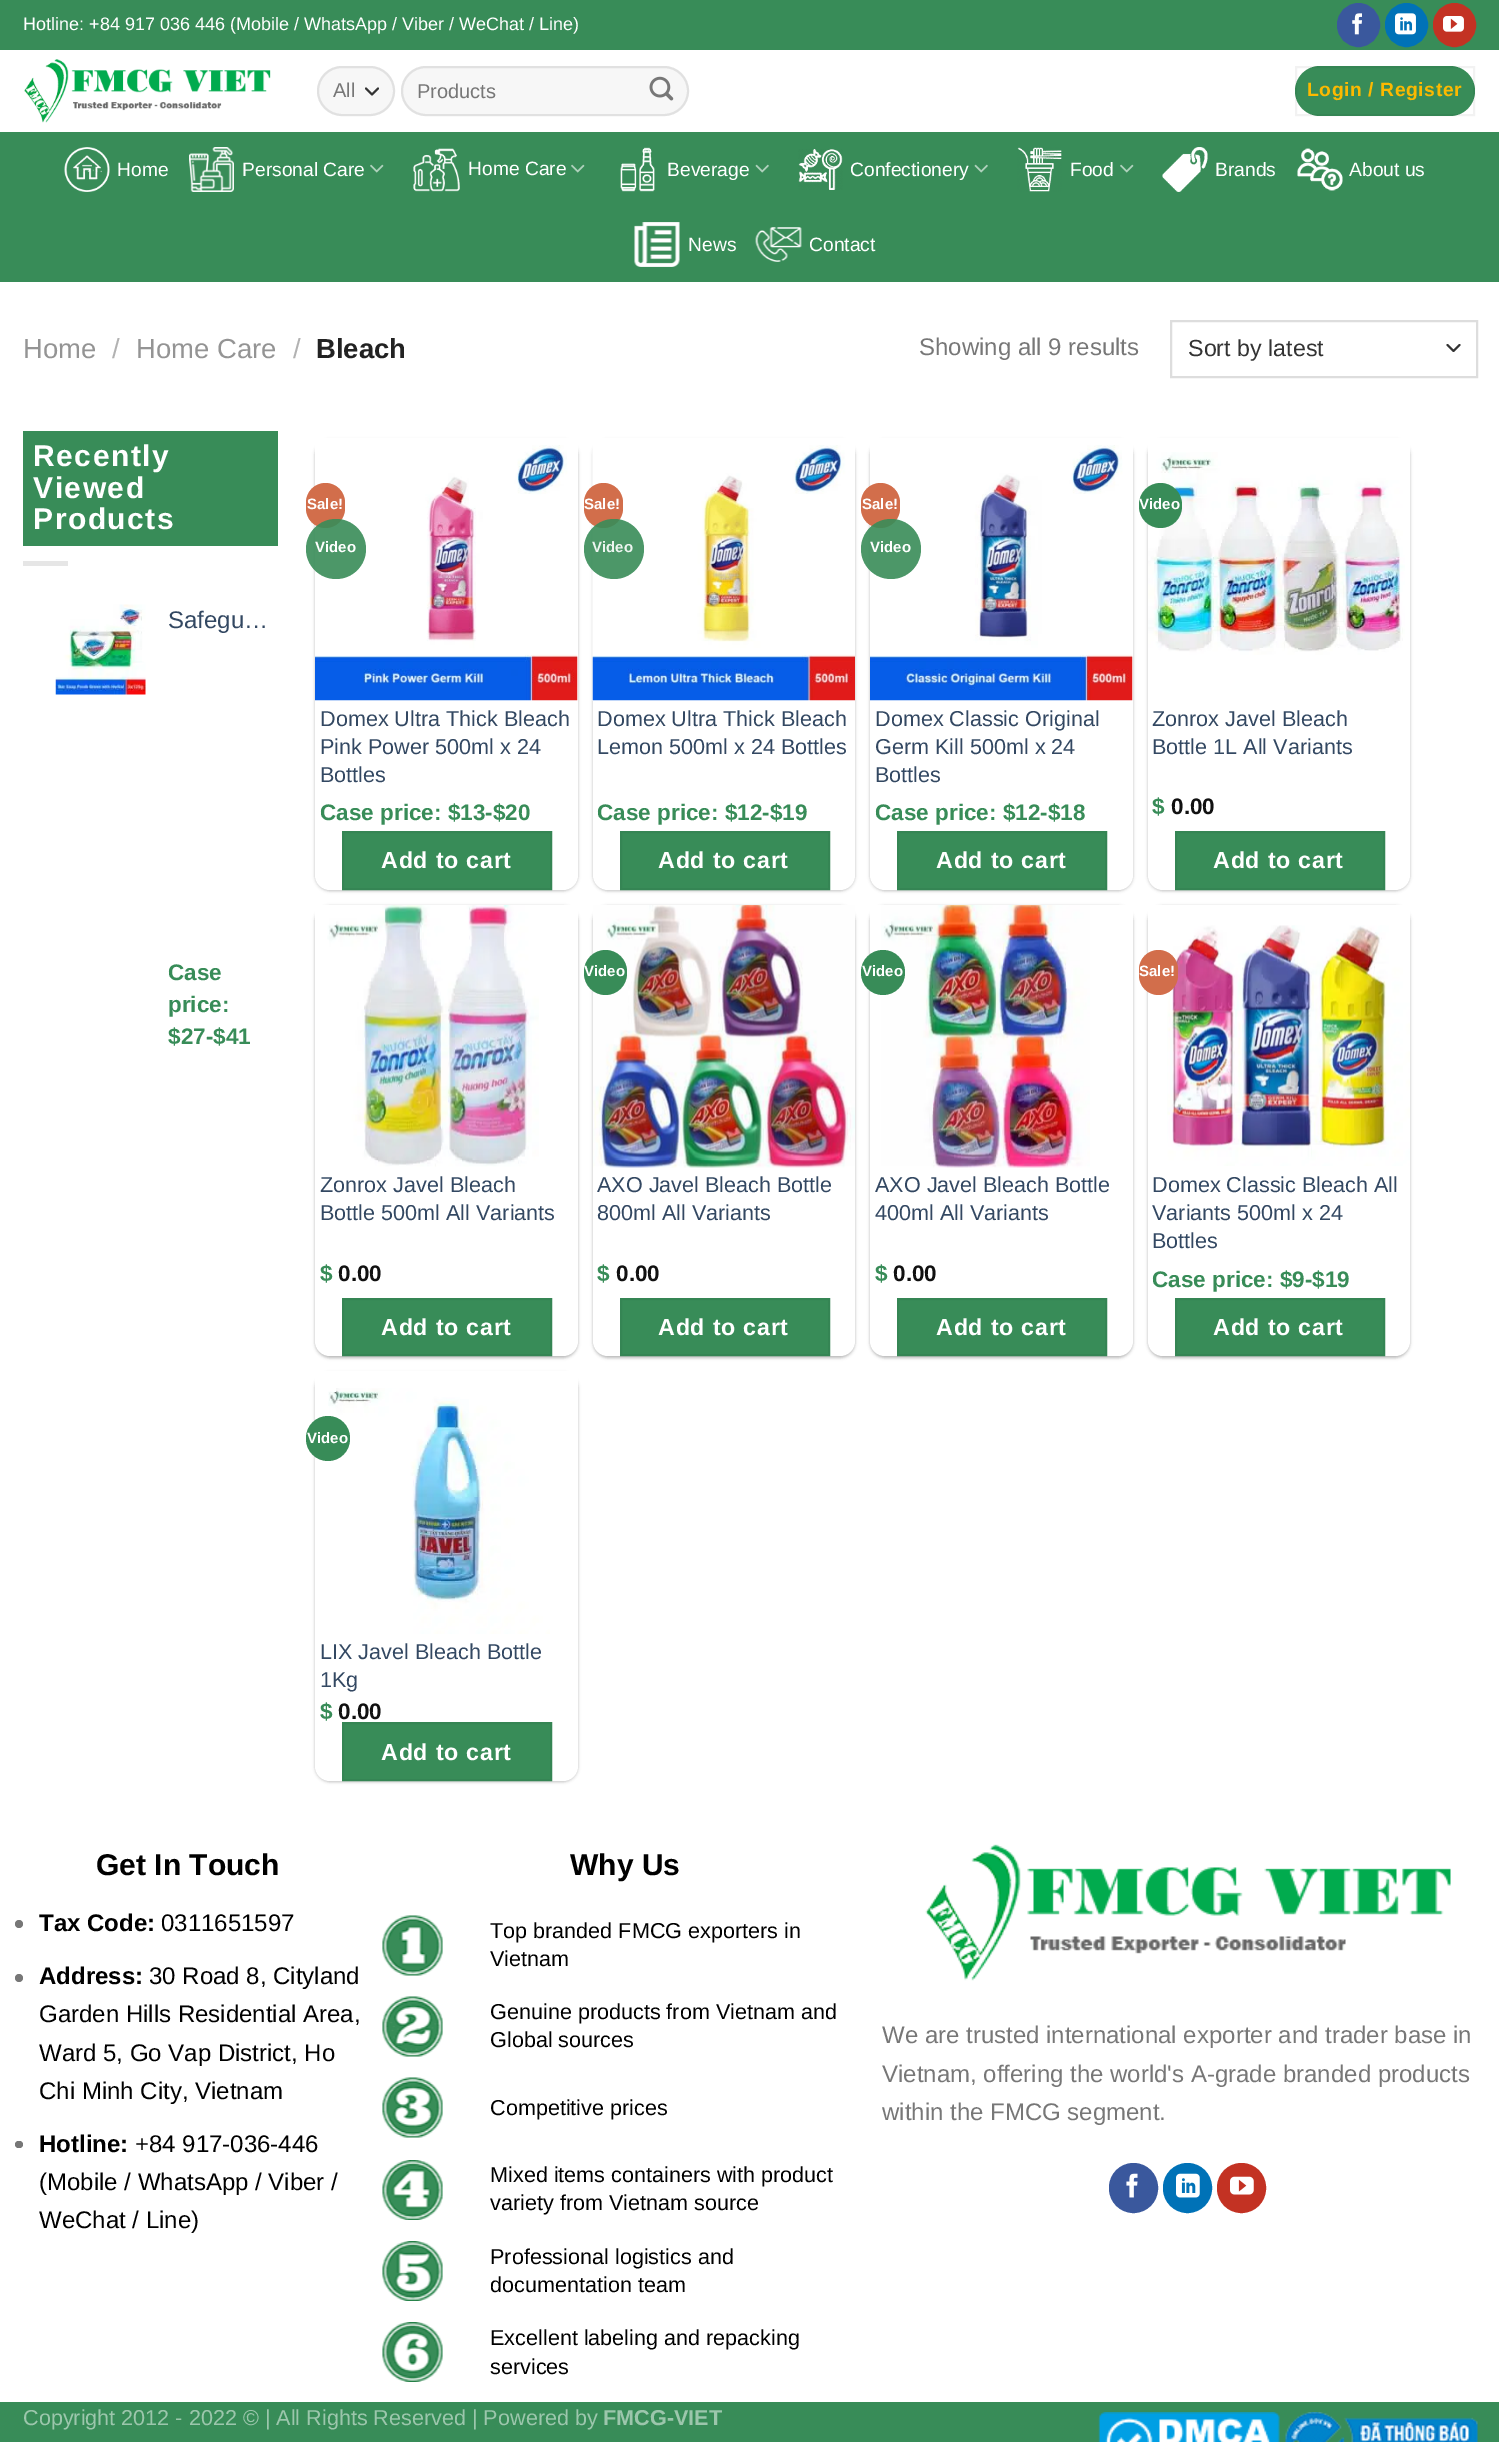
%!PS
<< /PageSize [1499 2442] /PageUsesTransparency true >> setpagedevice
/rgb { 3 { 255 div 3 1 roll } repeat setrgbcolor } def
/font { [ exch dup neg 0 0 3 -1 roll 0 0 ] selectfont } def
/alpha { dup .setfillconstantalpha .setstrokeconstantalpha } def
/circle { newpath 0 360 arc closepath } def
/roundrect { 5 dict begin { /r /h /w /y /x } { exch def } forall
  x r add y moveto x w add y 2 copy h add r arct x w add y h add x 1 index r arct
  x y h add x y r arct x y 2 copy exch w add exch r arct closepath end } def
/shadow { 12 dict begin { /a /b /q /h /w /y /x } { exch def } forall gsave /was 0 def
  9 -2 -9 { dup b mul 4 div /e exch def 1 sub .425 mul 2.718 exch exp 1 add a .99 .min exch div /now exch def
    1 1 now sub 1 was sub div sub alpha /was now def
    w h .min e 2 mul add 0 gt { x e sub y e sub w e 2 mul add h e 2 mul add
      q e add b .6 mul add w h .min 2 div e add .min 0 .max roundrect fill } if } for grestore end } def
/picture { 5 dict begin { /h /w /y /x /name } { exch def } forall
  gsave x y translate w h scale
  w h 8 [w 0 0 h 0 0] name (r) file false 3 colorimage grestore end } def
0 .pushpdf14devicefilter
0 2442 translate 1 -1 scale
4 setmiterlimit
255 255 255 rgb
0 0 1499 2442 rectfill
56 140 88 rgb
0 0 1499 50 rectfill
58 88 157 rgb
1338 4 41 42 20.5 roundrect gsave fill grestore
2 setlinewidth
stroke
(img/1.rgb) 1352 13 10 22 picture
0 114 183 rgb
1386 4 41 42 20.5 roundrect gsave fill grestore
stroke
(img/2.rgb) 1395 13 21 22 picture
195 50 35 rgb
1434 4 41 42 20.5 roundrect gsave fill grestore
stroke
(img/3.rgb) 1443 16 21 16 picture
(img/4.rgb) 24 59 247 64 picture
247 247 247 rgb
317 66 78 50 25 roundrect fill
51 51 51 rgb
1 setlinecap
1 setlinejoin
366 88.5 moveto 372 94.5 lineto 378 88.5 lineto stroke
0.09 alpha
0 0 0 rgb
0 setlinecap
0 setlinejoin
318 67 76 48 24 roundrect stroke
1 alpha
247 247 247 rgb
401 66 288 50 25 roundrect fill
0.09 alpha
0 0 0 rgb
402 67 286 48 24 roundrect stroke
1 alpha
(img/5.rgb) 649 76 25 25 picture
56 140 88 rgb
1295 66 180 50 25 roundrect fill
0.05 alpha
0 0 0 rgb
1296 67 178 48 rectstroke
1 alpha
56 140 88 rgb
0 132 1499 150 rectfill
(img/6.rgb) 64 147 46 45 picture
(img/7.rgb) 189 147 45 45 picture
(img/8.rgb) 370 164 14 9 picture
(img/9.rgb) 413 148 47 44 picture
(img/8.rgb) 571 164 14 9 picture
(img/10.rgb) 620 147 35 45 picture
(img/11.rgb) 755 164 14 9 picture
(img/12.rgb) 798 149 45 41 picture
(img/11.rgb) 974 164 14 9 picture
(img/13.rgb) 1017 147 45 45 picture
(img/8.rgb) 1120 164 14 9 picture
(img/14.rgb) 1162 147 46 45 picture
(img/15.rgb) 1297 148 46 43 picture
(img/16.rgb) 634 222 46 45 picture
(img/17.rgb) 755 227 47 35 picture
51 51 51 rgb
1 setlinecap
1 setlinejoin
1447.5 345 moveto 1453.5 351 lineto 1459.5 345 lineto stroke
221 221 221 rgb
0 setlinecap
0 setlinejoin
1171 321 306 56 rectstroke
56 140 88 rgb
23 431 255 115 rectfill
230 230 230 rgb
23 561 45 5 rectfill
(img/18.rgb) 55 604 91 91 picture
0 0 0 rgb
315 440 263 451 15 1.5 0.24 shadow
255 255 255 rgb
315 438 263 452 15 roundrect fill
315 438 263 14 rectfill
(img/19.rgb) 315 445 263 256 picture
210 110 75 rgb
306 483 39 45 19.5 roundrect fill
0.9 alpha
56 140 88 rgb
336 549 30 circle fill
1 alpha
343 832 moveto 551 832 lineto 551 889 lineto 343 889 lineto closepath gsave fill grestore
53 133 84 rgb
stroke
0 0 0 rgb
593 440 262 451 15 1.5 0.24 shadow
255 255 255 rgb
593 438 262 452 15 roundrect fill
593 438 262 14 rectfill
(img/20.rgb) 592 445 263 256 picture
210 110 75 rgb
584 483 39 45 19.5 roundrect fill
0.9 alpha
56 140 88 rgb
614 549 30 circle fill
1 alpha
621 832 moveto 829 832 lineto 829 889 lineto 621 889 lineto closepath gsave fill grestore
53 133 84 rgb
stroke
0 0 0 rgb
870 440 263 451 15 1.5 0.24 shadow
255 255 255 rgb
870 438 263 452 15 roundrect fill
870 438 263 14 rectfill
(img/21.rgb) 870 445 263 256 picture
210 110 75 rgb
861 483 39 45 19.5 roundrect fill
0.9 alpha
56 140 88 rgb
891 549 30 circle fill
1 alpha
898 832 moveto 1106 832 lineto 1106 889 lineto 898 889 lineto closepath gsave fill grestore
53 133 84 rgb
stroke
0 0 0 rgb
1148 440 262 451 15 1.5 0.24 shadow
255 255 255 rgb
1148 438 262 452 15 roundrect fill
(img/22.rgb) 1148 452 257 203 picture
56 140 88 rgb
1139 483 43 45 21.5 roundrect fill
255 255 255 rgb
1148 438 262 14 rectfill
56 140 88 rgb
1176 832 moveto 1384 832 lineto 1384 889 lineto 1176 889 lineto closepath gsave fill grestore
53 133 84 rgb
stroke
0 0 0 rgb
315 906 263 452 15 1.5 0.24 shadow
318 909 257 446 12 2 0.12 shadow
255 255 255 rgb
315 905 263 451 15 roundrect fill
315 905 263 14 rectfill
(img/23.rgb) 327 905 212 262 picture
56 140 88 rgb
343 1299 moveto 551 1299 lineto 551 1355 lineto 343 1355 lineto closepath gsave fill grestore
53 133 84 rgb
stroke
0 0 0 rgb
593 906 262 452 15 1.5 0.24 shadow
596 909 256 446 12 2 0.12 shadow
255 255 255 rgb
593 905 262 451 15 roundrect fill
(img/24.rgb) 593 905 262 263 picture
56 140 88 rgb
584 950 43 45 21.5 roundrect fill
621 1299 moveto 829 1299 lineto 829 1355 lineto 621 1355 lineto closepath gsave fill grestore
53 133 84 rgb
stroke
0 0 0 rgb
870 906 263 452 15 1.5 0.24 shadow
873 909 257 446 12 2 0.12 shadow
255 255 255 rgb
870 905 263 451 15 roundrect fill
870 905 263 14 rectfill
(img/25.rgb) 881 905 209 263 picture
56 140 88 rgb
861 950 44 45 22 roundrect fill
898 1299 moveto 1106 1299 lineto 1106 1355 lineto 898 1355 lineto closepath gsave fill grestore
53 133 84 rgb
stroke
0 0 0 rgb
1148 906 262 452 15 1.5 0.24 shadow
1151 909 256 446 12 2 0.12 shadow
255 255 255 rgb
1148 905 262 451 15 roundrect fill
(img/26.rgb) 1167 925 243 241 picture
210 110 75 rgb
1139 950 39 45 19.5 roundrect fill
255 255 255 rgb
1148 905 262 14 rectfill
56 140 88 rgb
1176 1299 moveto 1384 1299 lineto 1384 1355 lineto 1176 1355 lineto closepath gsave fill grestore
53 133 84 rgb
stroke
0 0 0 rgb
315 1373 263 409 15 1.5 0.24 shadow
255 255 255 rgb
315 1371 263 410 15 roundrect fill
(img/27.rgb) 328 1388 222 246 picture
56 140 88 rgb
306 1416 44 45 22 roundrect fill
255 255 255 rgb
315 1371 263 14 rectfill
56 140 88 rgb
343 1723 moveto 551 1723 lineto 551 1780 lineto 343 1780 lineto closepath gsave fill grestore
53 133 84 rgb
stroke
119 119 119 rgb
19 1924 4 circle fill
19 1978 4 circle fill
15 2141 8 7 3.5 roundrect fill
(img/28.rgb) 382 1915 61 61 picture
(img/29.rgb) 382 1996 61 61 picture
(img/30.rgb) 382 2077 61 61 picture
(img/31.rgb) 382 2160 61 60 picture
(img/32.rgb) 382 2241 61 60 picture
(img/33.rgb) 382 2322 61 60 picture
(img/34.rgb) 925 1844 526 137 picture
58 88 157 rgb
1110 2164 47 48 23.5 roundrect gsave fill grestore
stroke
(img/35.rgb) 1126 2173 12 25 picture
0 114 183 rgb
1164 2164 47 48 23.5 roundrect gsave fill grestore
stroke
(img/36.rgb) 1176 2173 24 25 picture
195 50 35 rgb
1218 2164 47 48 23.5 roundrect gsave fill grestore
stroke
(img/37.rgb) 1230 2176 24 19 picture
56 140 88 rgb
0 2402 1499 40 rectfill
(img/38.rgb) 1098 2412 182 30 picture
(img/39.rgb) 1285 2412 193 30 picture
/LiberationSans-Regular 18 font
255 255 255 rgb
23 30 moveto (Hotline: +84 917 036 446 \(Mobile / WhatsApp / Viber / WeChat / Line\)) show
/LiberationSans-Regular 20 font
119 119 119 rgb
333 97 moveto (All) show
417 98 moveto (Products) show
/LiberationSans-Bold 19.25 font
252 185 0 rgb
1307 96 moveto 0.6 0 (Login / Register) ashow
/LiberationSans-Regular 19.25 font
255 255 255 rgb
[
  [(Home) 117 176]
  [(Personal Care) 242 176]
  [(Home Care) 468 175]
  [(Beverage) 667 176]
  [(Confectionery) 850 176]
  [(Food) 1070 176]
  [(Brands) 1215 176]
  [(About us) 1349 176]
  [(News) 688 251]
  [(Contact) 809 251]
] { aload pop moveto show } forall
/LiberationSans-Regular 27.5 font
148 148 148 rgb
23 358 moveto (Home) show
178 178 178 rgb
112 358 moveto (/) show
148 148 148 rgb
136 358 moveto (Home Care) show
178 178 178 rgb
293 358 moveto (/) show
/LiberationSans-Bold 27.5 font
34 34 34 rgb
316 358 moveto (Bleach) show
/LiberationSans-Regular 24 font
119 119 119 rgb
919 355 moveto (Showing all 9 results) show
/LiberationSans-Regular 23.25 font
51 51 51 rgb
1188 356 moveto (Sort by latest) show
/LiberationSans-Bold 30 font
255 255 255 rgb
33 466 moveto 1.5 0 (Recently) ashow
33 498 moveto 1.5 0 (Viewed) ashow
33 529 moveto 1.5 0 (Products) ashow
/LiberationSans-Regular 24 font
51 72 98 rgb
168 628 moveto (Safegu…) show
/LiberationSans-Bold 22.5 font
56 140 88 rgb
[
  [(Case) 168 980]
  [(price:) 168 1012]
  [($27-$41) 168 1044]
] { aload pop moveto show } forall
/LiberationSans-Bold 15 font
255 255 255 rgb
307 509 moveto (Sale!) show
315 552 moveto (Video) show
/LiberationSans-Regular 21.6 font
51 72 98 rgb
[
  [(Domex Ultra Thick Bleach) 320 726]
  [(Pink Power 500ml x 24) 320 754]
  [(Bottles) 320 782]
] { aload pop moveto show } forall
/LiberationSans-Bold 22.5 font
56 140 88 rgb
320 820 moveto (Case price: $13-$20) show
/LiberationSans-Bold 23.25 font
255 255 255 rgb
381 868 moveto 0.75 0 (Add to cart) ashow
/LiberationSans-Bold 15 font
584 509 moveto (Sale!) show
237 245 240 rgb
592 552 moveto (Video) show
/LiberationSans-Regular 21.6 font
51 72 98 rgb
597 726 moveto (Domex Ultra Thick Bleach) show
597 754 moveto (Lemon 500ml x 24 Bottles) show
/LiberationSans-Bold 22.5 font
56 140 88 rgb
597 820 moveto (Case price: $12-$19) show
/LiberationSans-Bold 23.25 font
255 255 255 rgb
658 868 moveto 0.75 0 (Add to cart) ashow
/LiberationSans-Bold 15 font
862 509 moveto (Sale!) show
870 552 moveto (Video) show
/LiberationSans-Regular 21.6 font
51 72 98 rgb
[
  [(Domex Classic Original) 875 726]
  [(Germ Kill 500ml x 24) 875 754]
  [(Bottles) 875 782]
] { aload pop moveto show } forall
/LiberationSans-Bold 22.5 font
56 140 88 rgb
875 820 moveto (Case price: $12-$18) show
/LiberationSans-Bold 23.25 font
255 255 255 rgb
936 868 moveto 0.75 0 (Add to cart) ashow
/LiberationSans-Bold 15 font
1139 509 moveto (Video) show
/LiberationSans-Regular 21.6 font
51 72 98 rgb
1152 726 moveto (Zonrox Javel Bleach) show
1152 754 moveto (Bottle 1L All Variants) show
/LiberationSans-Bold 22.5 font
56 140 88 rgb
1152 814 moveto ($) show
17 17 17 rgb
1171 814 moveto (0.00) show
/LiberationSans-Bold 23.25 font
255 255 255 rgb
1213 868 moveto 0.75 0 (Add to cart) ashow
/LiberationSans-Regular 21.6 font
51 72 98 rgb
320 1192 moveto (Zonrox Javel Bleach) show
320 1220 moveto (Bottle 500ml All Variants) show
/LiberationSans-Bold 22.5 font
56 140 88 rgb
320 1281 moveto ($) show
17 17 17 rgb
338 1281 moveto (0.00) show
/LiberationSans-Bold 23.25 font
255 255 255 rgb
381 1335 moveto 0.75 0 (Add to cart) ashow
/LiberationSans-Bold 15 font
584 976 moveto (Video) show
/LiberationSans-Regular 21.6 font
51 72 98 rgb
597 1192 moveto (AXO Javel Bleach Bottle) show
597 1220 moveto (800ml All Variants) show
/LiberationSans-Bold 22.5 font
56 140 88 rgb
597 1281 moveto ($) show
17 17 17 rgb
616 1281 moveto (0.00) show
/LiberationSans-Bold 23.25 font
255 255 255 rgb
658 1335 moveto 0.75 0 (Add to cart) ashow
/LiberationSans-Bold 15 font
862 976 moveto (Video) show
/LiberationSans-Regular 21.6 font
51 72 98 rgb
875 1192 moveto (AXO Javel Bleach Bottle) show
875 1220 moveto (400ml All Variants) show
/LiberationSans-Bold 22.5 font
56 140 88 rgb
875 1281 moveto ($) show
17 17 17 rgb
893 1281 moveto (0.00) show
/LiberationSans-Bold 23.25 font
255 255 255 rgb
936 1335 moveto 0.75 0 (Add to cart) ashow
/LiberationSans-Bold 15 font
1139 976 moveto (Sale!) show
/LiberationSans-Regular 21.6 font
51 72 98 rgb
[
  [(Domex Classic Bleach All) 1152 1192]
  [(Variants 500ml x 24) 1152 1220]
  [(Bottles) 1152 1248]
] { aload pop moveto show } forall
/LiberationSans-Bold 22.5 font
56 140 88 rgb
1152 1287 moveto (Case price: $9-$19) show
/LiberationSans-Bold 23.25 font
255 255 255 rgb
1213 1335 moveto 0.75 0 (Add to cart) ashow
/LiberationSans-Bold 15 font
307 1443 moveto (Video) show
/LiberationSans-Regular 21.6 font
51 72 98 rgb
320 1659 moveto (LIX Javel Bleach Bottle) show
320 1687 moveto (1Kg) show
/LiberationSans-Bold 22.5 font
56 140 88 rgb
320 1719 moveto ($) show
17 17 17 rgb
338 1719 moveto (0.00) show
/LiberationSans-Bold 23.25 font
255 255 255 rgb
381 1760 moveto 0.75 0 (Add to cart) ashow
/LiberationSans-Bold 30 font
0 0 0 rgb
96 1875 moveto (Get In Touch) show
/LiberationSans-Bold 24 font
39 1931 moveto (Tax Code:) show
/LiberationSans-Regular 24 font
161 1931 moveto (0311651597) show
/LiberationSans-Bold 24 font
39 1984 moveto (Address:) show
/LiberationSans-Regular 24 font
[
  [(30 Road 8, Cityland) 149 1984]
  [(Garden Hills Residential Area,) 39 2022]
  [(Ward 5, Go Vap District, Ho) 39 2061]
  [(Chi Minh City, Vietnam) 39 2099]
] { aload pop moveto show } forall
/LiberationSans-Bold 24 font
39 2152 moveto (Hotline:) show
/LiberationSans-Regular 24 font
[
  [(+84 917-036-446) 135 2152]
  [(\(Mobile / WhatsApp / Viber /) 39 2190]
  [(WeChat / Line\)) 39 2228]
] { aload pop moveto show } forall
/LiberationSans-Bold 30 font
570 1875 moveto (Why Us) show
/LiberationSans-Regular 21.6 font
[
  [(Top branded FMCG exporters in) 490 1938]
  [(Vietnam) 490 1966]
  [(Genuine products from Vietnam and) 490 2019]
  [(Global sources) 490 2047]
  [(Competitive prices) 490 2115]
  [(Mixed items containers with product) 490 2182]
  [(variety from Vietnam source) 490 2210]
  [(Professional logistics and) 490 2264]
  [(documentation team) 490 2292]
  [(Excellent labeling and repacking) 490 2345]
  [(services) 490 2374]
] { aload pop moveto show } forall
/LiberationSans-Regular 24 font
119 119 119 rgb
[
  [(We are trusted international exporter and trader base in) 882 2043]
  [(Vietnam, offering the world's A-grade branded products) 882 2082]
  [(within the FMCG segment.) 882 2120]
] { aload pop moveto show } forall
/LiberationSans-Regular 21.6 font
156 198 172 rgb
23 2425 moveto (Copyright 2012 - 2022 © | All Rights Reserved | Powered by) show
/LiberationSans-Bold 21.6 font
603 2425 moveto (FMCG-VIET) show
.poppdf14devicefilter showpage
